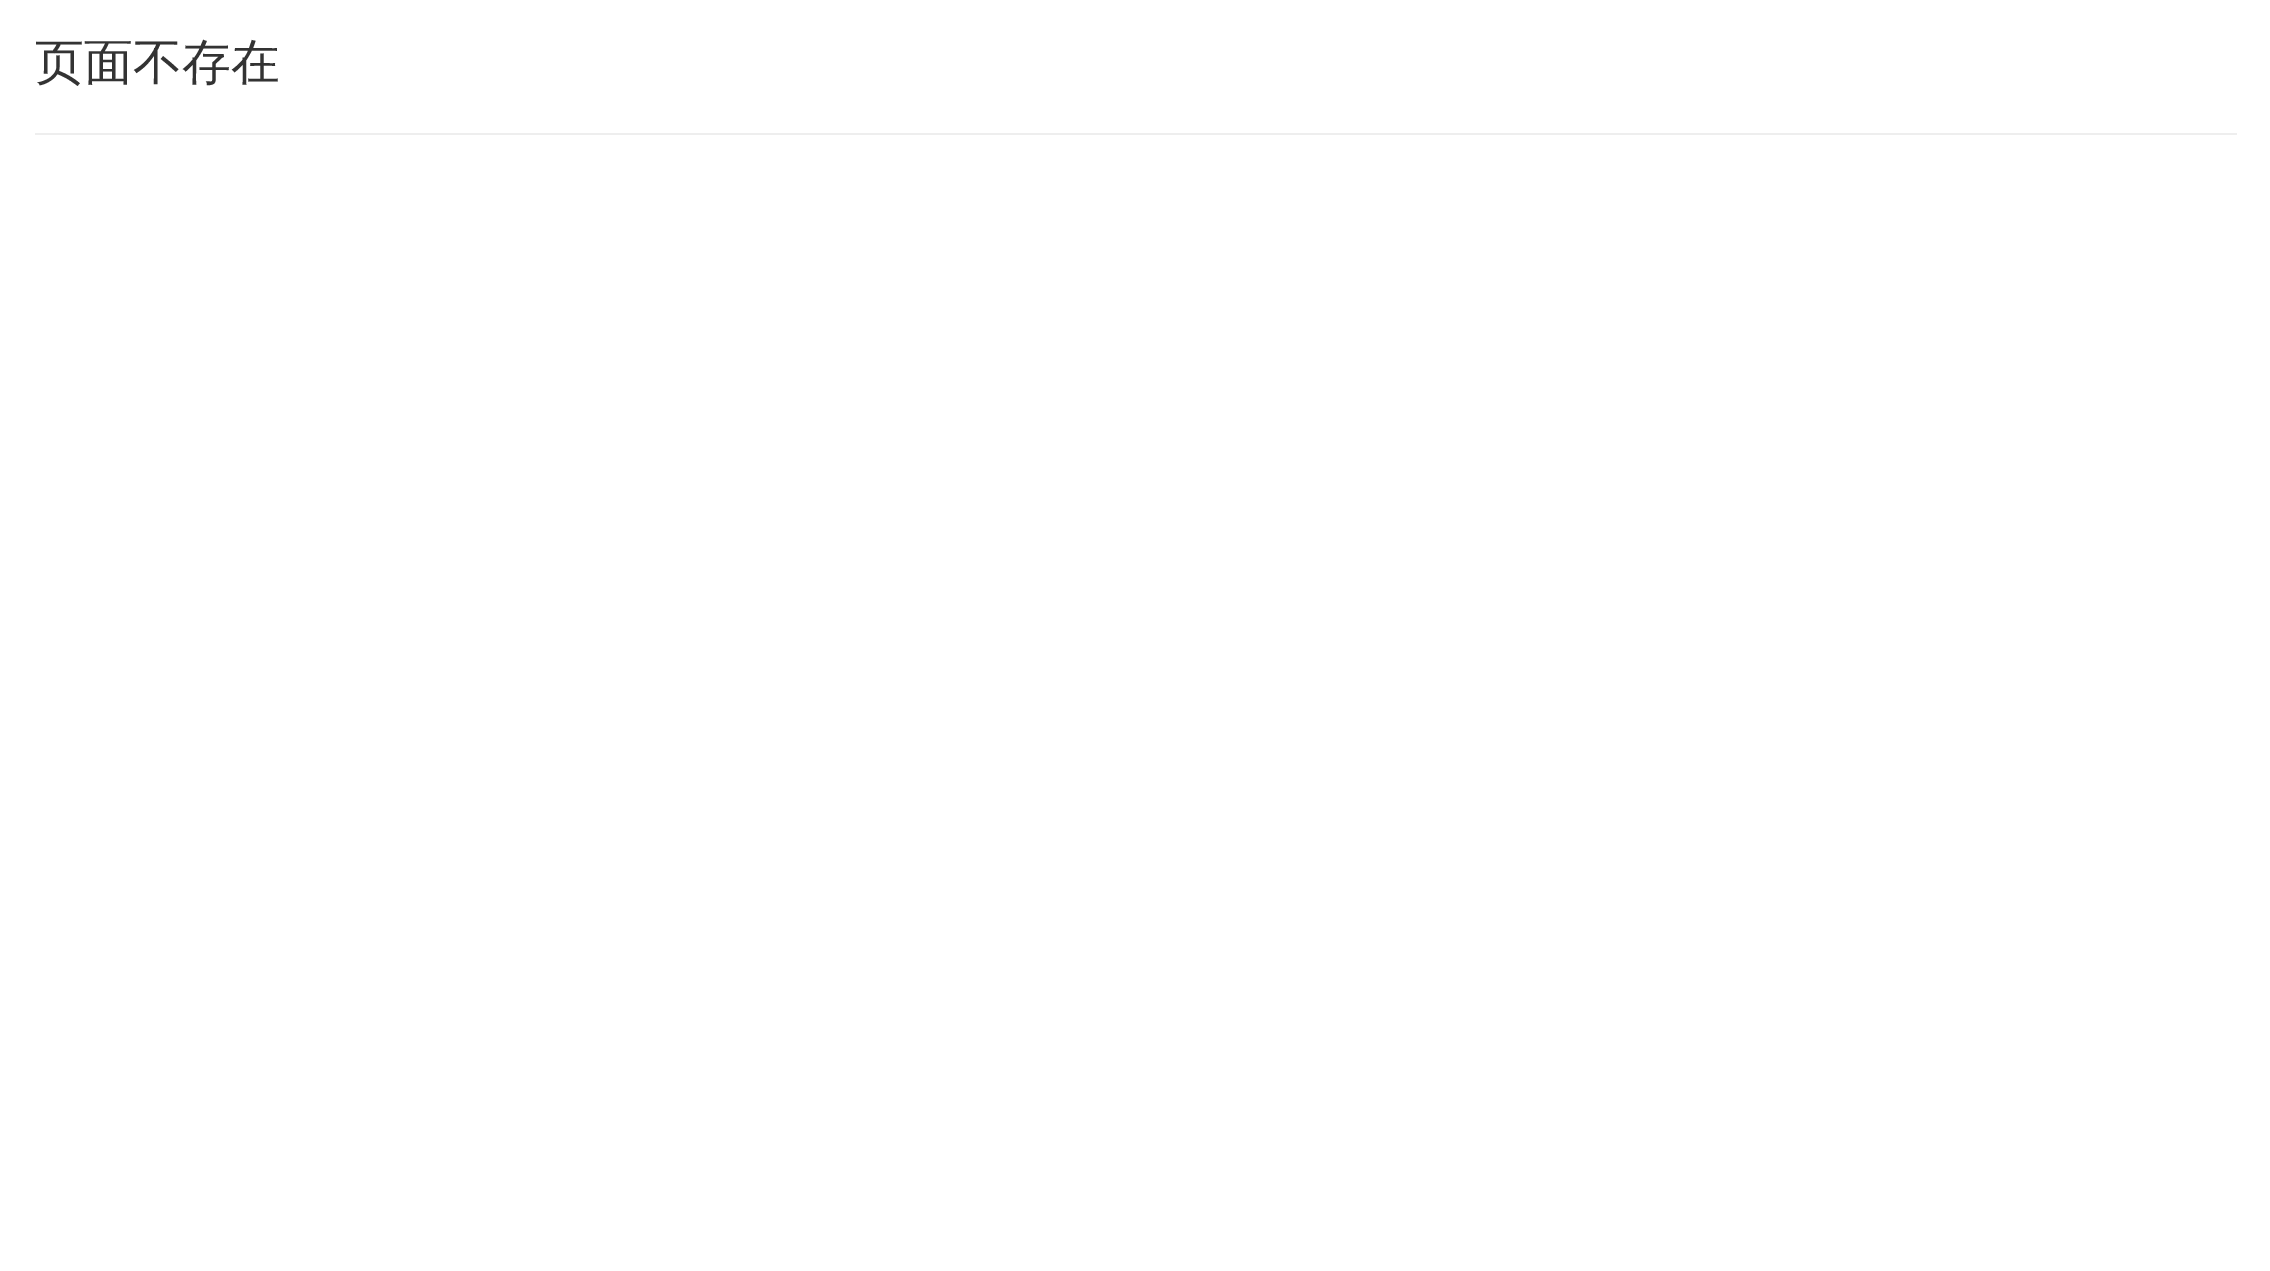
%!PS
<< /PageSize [2270 1271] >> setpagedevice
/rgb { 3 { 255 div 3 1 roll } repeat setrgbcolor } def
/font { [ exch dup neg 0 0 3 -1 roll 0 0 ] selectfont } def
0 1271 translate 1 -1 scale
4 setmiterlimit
255 255 255 rgb
0 0 2270 1271 rectfill
238 238 238 rgb
35 133 2202 2 rectfill
/WenQuanYiZenHei-Medium 49 font
51 51 51 rgb
35 79 moveto (页面不存在) show
showpage
